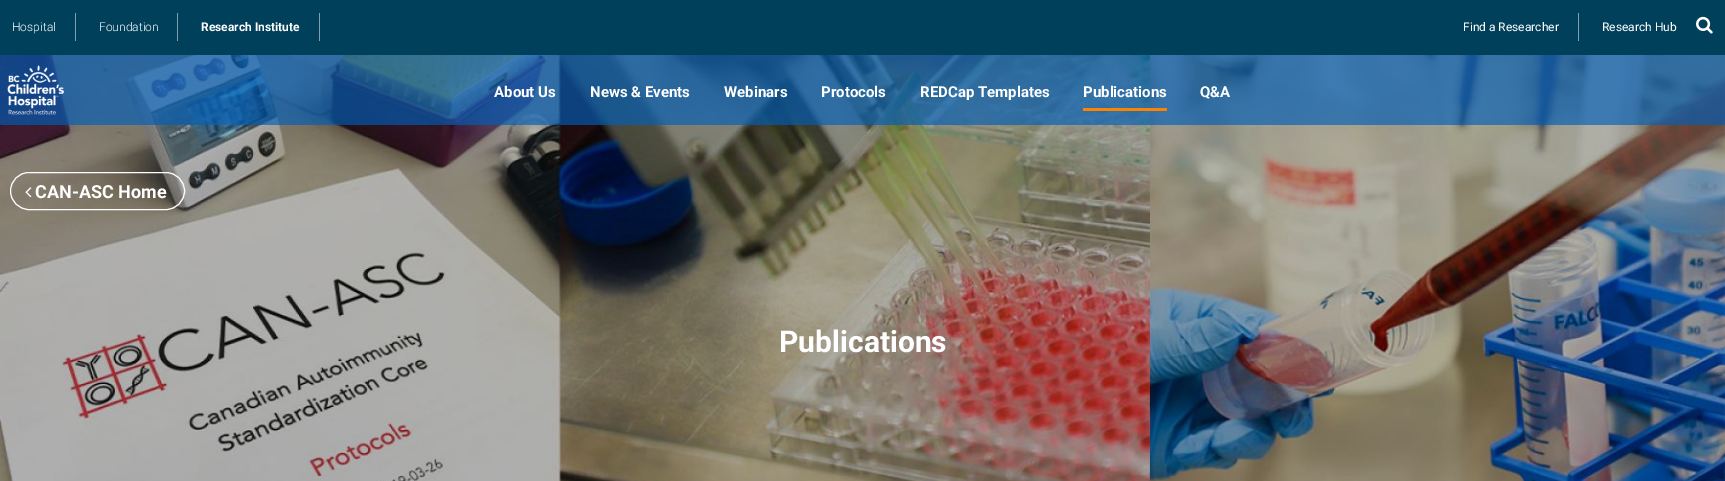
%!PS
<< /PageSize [1725 481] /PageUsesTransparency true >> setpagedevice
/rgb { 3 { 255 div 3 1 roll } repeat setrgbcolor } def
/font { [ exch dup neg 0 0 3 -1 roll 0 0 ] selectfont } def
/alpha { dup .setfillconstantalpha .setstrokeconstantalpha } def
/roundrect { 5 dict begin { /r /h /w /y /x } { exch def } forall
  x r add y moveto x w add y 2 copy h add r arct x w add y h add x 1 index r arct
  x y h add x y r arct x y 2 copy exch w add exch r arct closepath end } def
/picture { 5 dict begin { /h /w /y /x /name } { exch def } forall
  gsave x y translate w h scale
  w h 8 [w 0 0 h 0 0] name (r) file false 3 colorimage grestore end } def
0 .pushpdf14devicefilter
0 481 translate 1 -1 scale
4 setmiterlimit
255 255 255 rgb
0 0 1725 481 rectfill
[
  [0 0 1725 55 0 64 90]
  [75 13 1 28 128 160 173]
  [177 13 1 28 128 160 173]
  [319 13 1 28 128 160 173]
  [1578 13 1 28 128 160 173]
] { aload pop rgb rectfill } forall
(img/1.rgb) 1696 16 17 18 picture
(img/3.rgb) 0 55 1725 426 picture
0.65 alpha
0 94 184 rgb
0 55 1725 70 rectfill
1 alpha
(img/2.rgb) 7 65 58 50 picture
255 130 0 rgb
1083 108 84 3 rectfill
255 255 255 rgb
10.5 172.5 174 37 18.5 roundrect stroke
(img/4.rgb) 25 187 7 11 picture
/Roboto-Light 12 font
12 31 moveto (Hospital) show
99 31 moveto (Foundation) show
/Roboto-Bold 12 font
201 31 moveto (Research Institute) show
/Roboto-Regular 12 font
1463 31 moveto (Find a Researcher) show
1602 31 moveto (Research Hub) show
/Roboto-Bold 15 font
[
  [(About Us) 494 97]
  [(News & Events) 590 97]
  [(Webinars) 724 97]
  [(Protocols) 821 97]
  [(REDCap Templates) 920 97]
  [(Publications) 1083 97]
  [(Q&A) 1200 97]
] { aload pop moveto show } forall
/Roboto-Bold 18 font
35 198 moveto (CAN-ASC Home) show
/Roboto-Bold 30 font
779 352 moveto (Publications) show
.poppdf14devicefilter showpage
